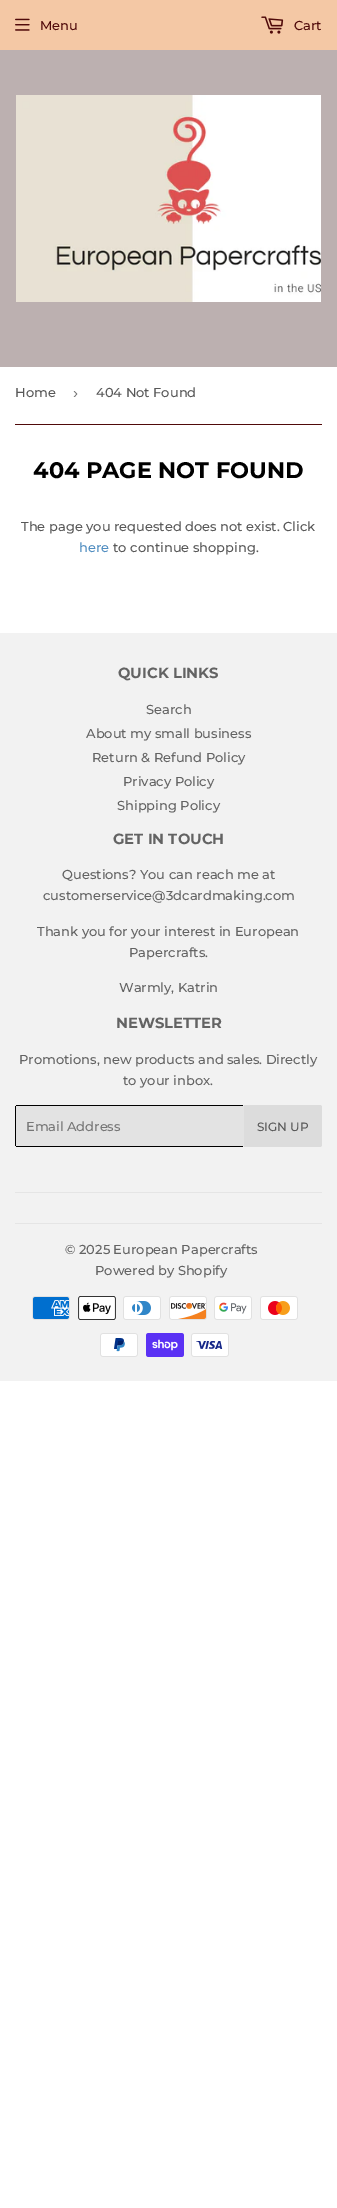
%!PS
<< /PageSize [337 2208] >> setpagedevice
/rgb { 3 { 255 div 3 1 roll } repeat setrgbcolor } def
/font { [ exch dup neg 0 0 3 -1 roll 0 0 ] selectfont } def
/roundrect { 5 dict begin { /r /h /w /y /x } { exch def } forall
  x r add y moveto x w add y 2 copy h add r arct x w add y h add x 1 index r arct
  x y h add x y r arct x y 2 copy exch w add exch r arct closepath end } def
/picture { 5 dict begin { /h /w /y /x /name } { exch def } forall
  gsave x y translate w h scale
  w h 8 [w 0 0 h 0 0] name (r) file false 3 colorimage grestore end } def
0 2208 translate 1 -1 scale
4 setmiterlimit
255 255 255 rgb
0 0 337 2208 rectfill
244 200 165 rgb
0 0 337 50 rectfill
(img/1.rgb) 15 18 15 13 picture
(img/2.rgb) 261 16 23 18 picture
188 176 176 rgb
0 50 337 317 rectfill
(img/3.rgb) 16 95 305 207 picture
80 10 10 rgb
15 424 307 1 rectfill
242 242 242 rgb
0 633 337 748 rectfill
227 227 227 rgb
15 1105 229 42 2 roundrect fill
[
  [16 1105 227 1 0 0 0]
  [16 1146 227 1 0 0 0]
  [15 1106 1 40 0 0 0]
] { aload pop rgb rectfill } forall
220 220 220 rgb
244 1105 moveto 320 1105 lineto 321 1105 322 1106 322 1107 curveto 322 1145 lineto 322 1146 321 1147 320 1147 curveto 244 1147 lineto closepath fill
229 229 229 rgb
15 1192 307 1 rectfill
15 1223 307 1 rectfill
(img/4.rgb) 32 1296 38 24 picture
(img/5.rgb) 78 1296 38 24 picture
(img/6.rgb) 123 1296 38 24 picture
(img/7.rgb) 169 1296 38 24 picture
(img/8.rgb) 214 1296 38 24 picture
(img/9.rgb) 260 1296 38 24 picture
(img/10.rgb) 100 1333 38 24 picture
(img/11.rgb) 146 1333 38 24 picture
(img/12.rgb) 191 1333 38 24 picture
/Montserrat-Medium 13 font
80 10 10 rgb
40 30 moveto (Menu) show
294 30 moveto (Cart) show
88 88 88 rgb
15 397 moveto (Home) show
/LiberationSans-Regular 15 font
118 118 118 rgb
73 398 moveto (›) show
/Montserrat-Medium 13 font
88 88 88 rgb
96 397 moveto (404 Not Found) show
/Montserrat-Bold 22.5 font
0 0 0 rgb
33 478 moveto (404 PAGE NOT FOUND) show
/Montserrat-Medium 13 font
88 88 88 rgb
21 531 moveto (The page you requested does not exist. Click) show
82 142 193 rgb
79 552 moveto (here) show
88 88 88 rgb
113 552 moveto (to continue shopping.) show
/Montserrat-Bold 14.75 font
99 99 99 rgb
118 678 moveto (QUICK LINKS) show
/Montserrat-Medium 13 font
[
  [(Search) 146 714]
  [(About my small business) 86 738]
  [(Return & Refund Policy) 92 762]
  [(Privacy Policy) 123 786]
  [(Shipping Policy) 117 810]
] { aload pop moveto show } forall
/Montserrat-Bold 14.75 font
113 844 moveto (GET IN TOUCH) show
/Montserrat-Medium 13 font
[
  [(Questions? You can reach me at) 62 879]
  [(customerservice@3dcardmaking.com) 43 900]
  [(Thank you for your interest in European) 37 936]
  [(Papercrafts.) 129 957]
  [(Warmly, Katrin) 119 992]
] { aload pop moveto show } forall
/Montserrat-Bold 14.75 font
116 1028 moveto (NEWSLETTER) show
/Montserrat-Medium 13 font
19 1064 moveto (Promotions, new products and sales. Directly) show
123 1085 moveto (to your inbox.) show
118 118 118 rgb
26 1131 moveto (Email Address) show
/Montserrat-Medium 12 font
88 88 88 rgb
257 1131 moveto (SIGN UP) show
/Montserrat-Medium 13 font
99 99 99 rgb
65 1254 moveto (© 2025 European Papercrafts) show
95 1275 moveto (Powered by Shopify) show
showpage
